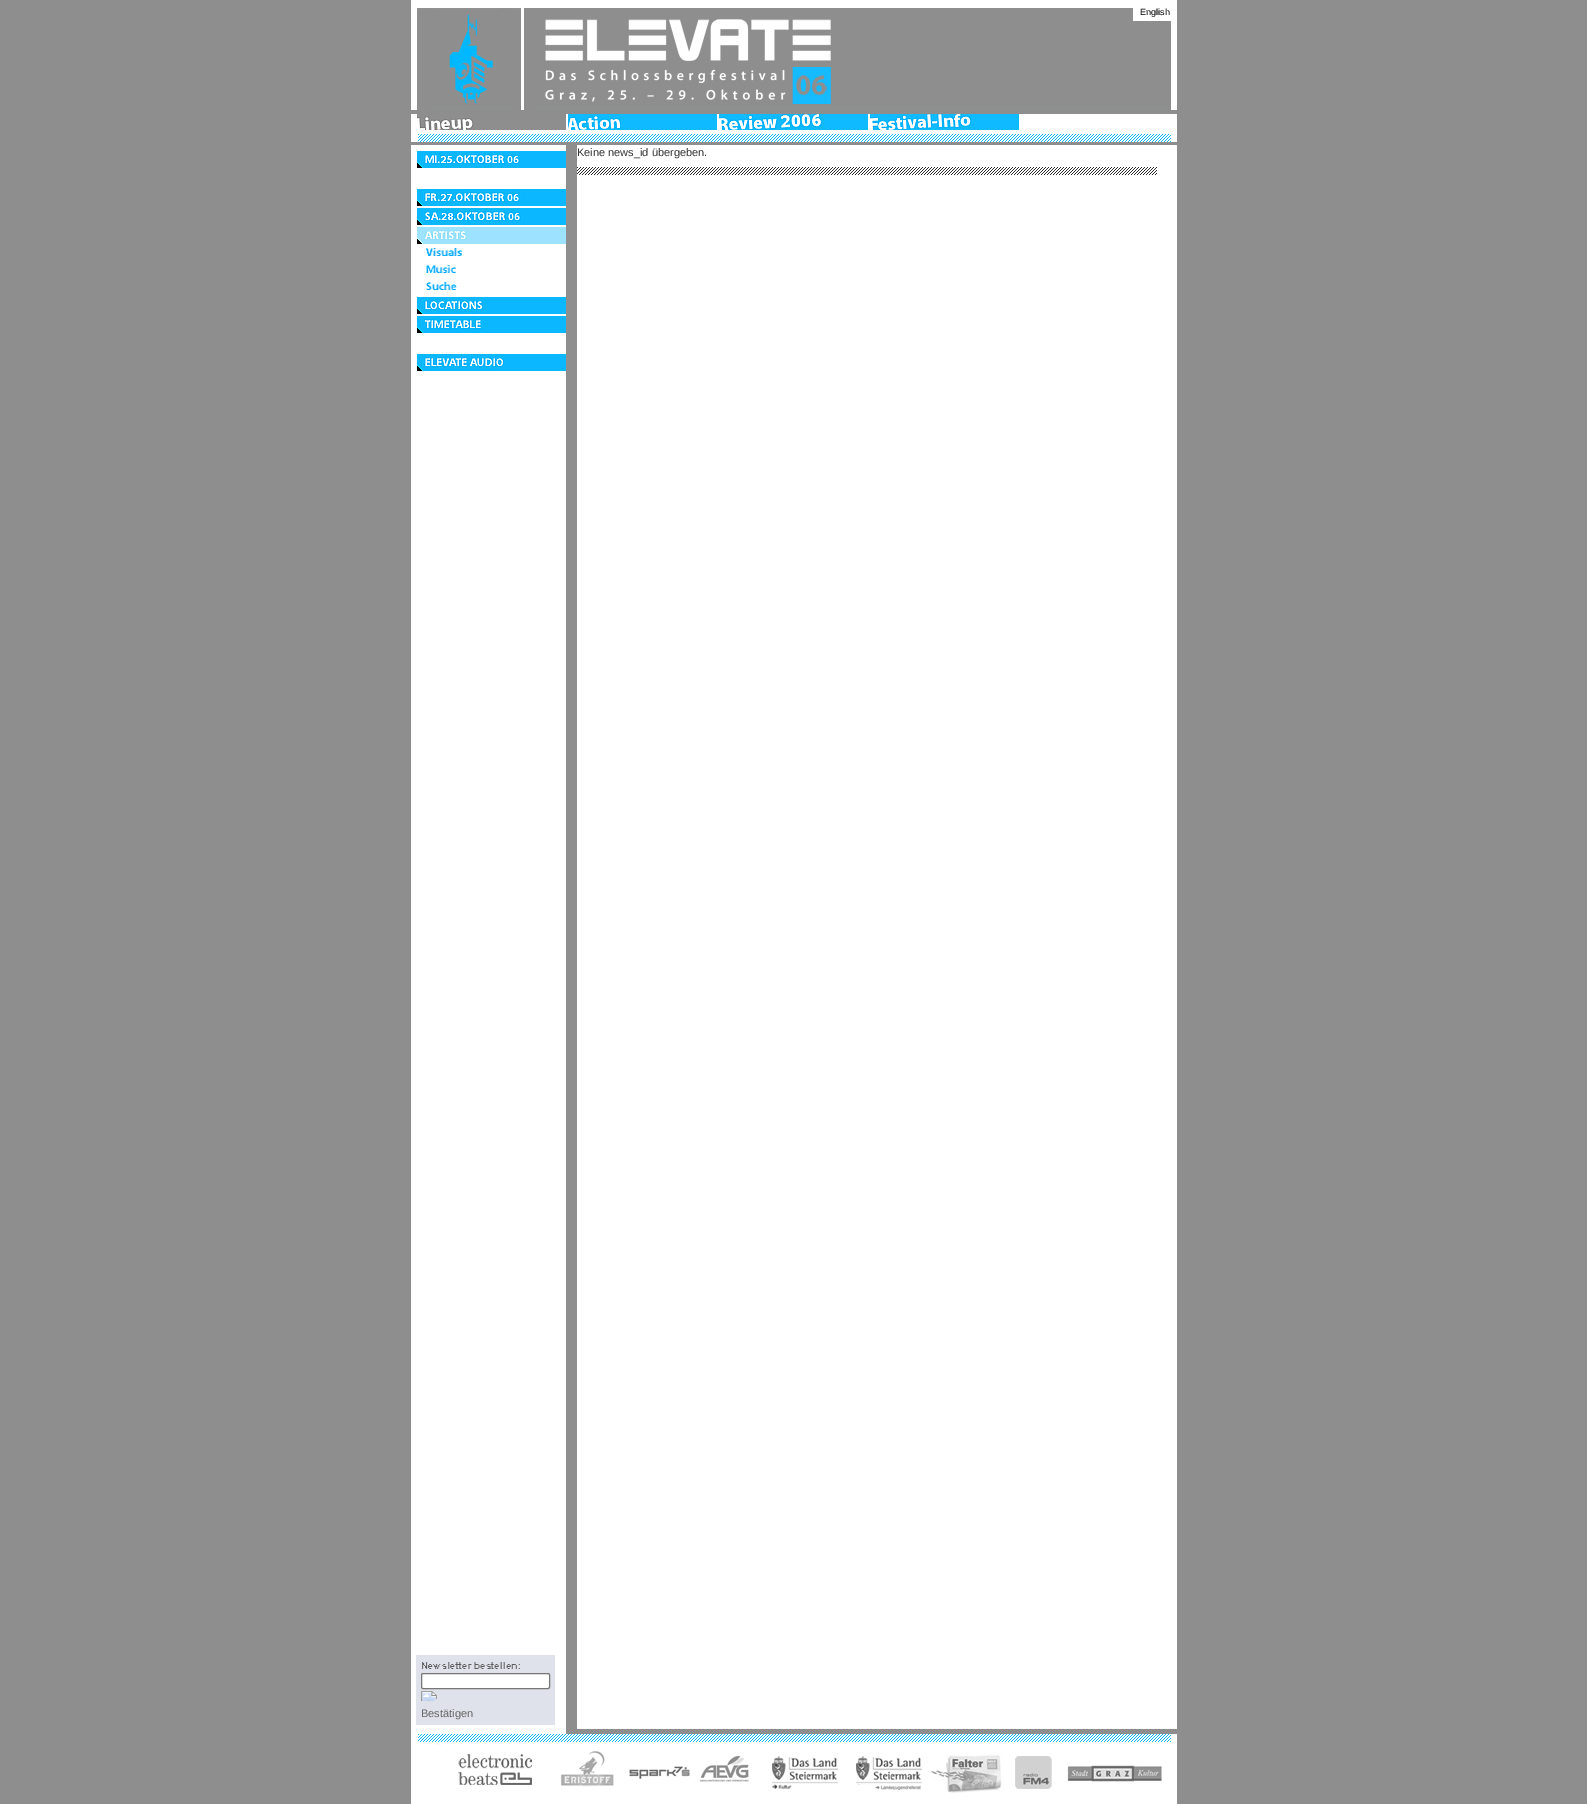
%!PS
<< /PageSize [1587 1804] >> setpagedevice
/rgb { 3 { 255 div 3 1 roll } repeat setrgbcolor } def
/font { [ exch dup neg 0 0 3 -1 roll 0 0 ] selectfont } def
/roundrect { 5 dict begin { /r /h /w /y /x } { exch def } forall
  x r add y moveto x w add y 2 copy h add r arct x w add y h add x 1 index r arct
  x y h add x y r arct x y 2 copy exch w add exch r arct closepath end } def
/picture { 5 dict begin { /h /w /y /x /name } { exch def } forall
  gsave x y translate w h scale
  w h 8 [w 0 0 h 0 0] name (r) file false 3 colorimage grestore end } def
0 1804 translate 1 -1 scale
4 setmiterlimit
142 142 142 rgb
0 0 1587 1804 rectfill
255 255 255 rgb
411 0 766 110 rectfill
(img/1.rgb) 417 8 754 102 picture
1133 8 38 13 rectfill
411 114 766 28 rectfill
(img/2.rgb) 418 134 753 8 picture
(img/3.rgb) 417 114 149 16 picture
(img/4.rgb) 568 114 149 16 picture
(img/5.rgb) 719 114 149 16 picture
(img/6.rgb) 870 114 149 16 picture
411 145 155 1589 rectfill
(img/7.rgb) 417 151 149 17 picture
(img/8.rgb) 417 189 149 17 picture
(img/9.rgb) 417 208 149 17 picture
(img/10.rgb) 417 227 149 17 picture
(img/11.rgb) 424 246 38 10 picture
(img/12.rgb) 424 263 32 10 picture
(img/13.rgb) 424 280 33 10 picture
(img/14.rgb) 417 297 149 17 picture
(img/15.rgb) 417 316 149 17 picture
(img/16.rgb) 417 354 149 17 picture
577 145 600 1584 rectfill
(img/17.rgb) 577 167 580 8 picture
(img/18.rgb) 416 1655 139 70 picture
421.5 1673.5 128 15 1.5 roundrect gsave fill grestore
118 118 118 rgb
stroke
(img/19.rgb) 421 1691 16 10 picture
255 255 255 rgb
411 1734 766 70 rectfill
(img/2.rgb) 418 1734 753 8 picture
(img/20.rgb) 435 1744 727 49 picture
/LiberationSans-Regular 9 font
0 0 0 rgb
1140 15 moveto (English) show
/LiberationSans-Regular 11 font
51 51 51 rgb
577 156 moveto (Keine news_id übergeben.) show
102 102 102 rgb
421 1717 moveto (Bestätigen) show
showpage
